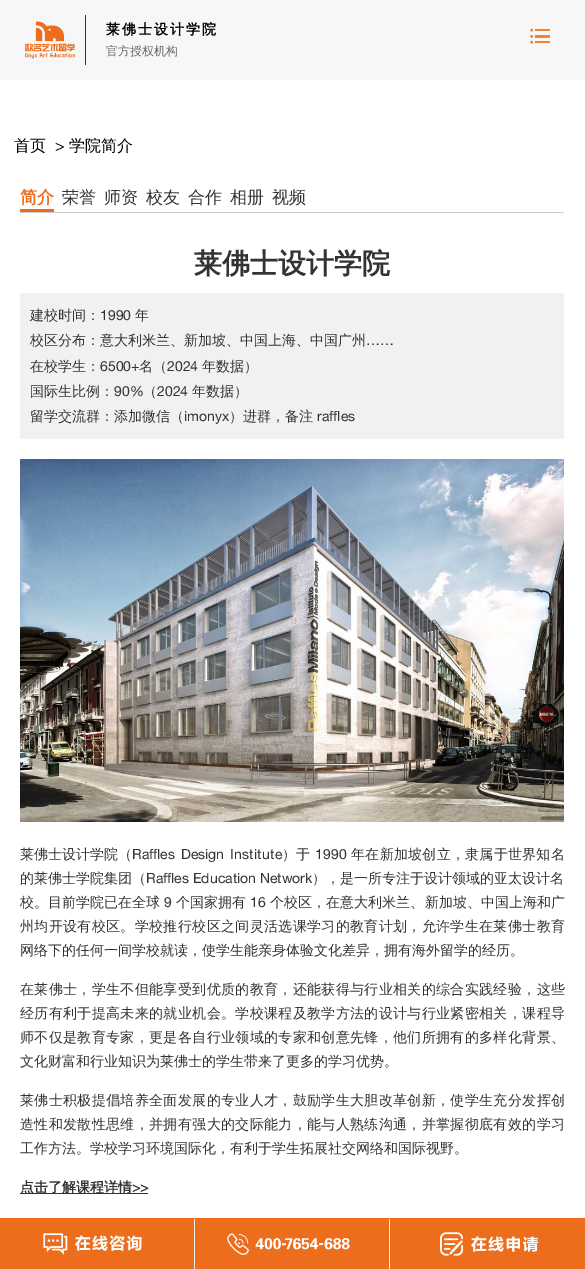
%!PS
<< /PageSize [585 1269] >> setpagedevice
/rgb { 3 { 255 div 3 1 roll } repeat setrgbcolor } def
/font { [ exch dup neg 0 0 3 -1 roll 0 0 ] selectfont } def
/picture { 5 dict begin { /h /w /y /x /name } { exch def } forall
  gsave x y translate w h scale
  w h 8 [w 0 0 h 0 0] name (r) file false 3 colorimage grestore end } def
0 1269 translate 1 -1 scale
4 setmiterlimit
255 255 255 rgb
0 0 585 1269 rectfill
247 247 247 rgb
0 0 585 80 rectfill
(img/1.rgb) 25 21 50 38 picture
51 51 51 rgb
85 15 1 50 rectfill
(img/2.rgb) 530 28 20 16 picture
[
  [20 212 544 1 204 204 204]
  [20 209 34 3 237 109 28]
  [20 293 544 146 241 241 241]
] { aload pop rgb rectfill } forall
(img/3.rgb) 20 459 544 363 picture
[
  [20 1193 128 1 51 51 51]
  [0 1218 585 51 237 109 28]
  [194 1219 1 50 238 238 238]
] { aload pop rgb rectfill } forall
(img/4.rgb) 43 1233 99 22 picture
389 1219 1 50 rectfill
(img/5.rgb) 227 1233 123 22 picture
(img/6.rgb) 440 1232 99 24 picture
/WenQuanYiZenHei-Bold 14 font
0 0 0 rgb
106 34 moveto 2 0 (莱佛士设计学院) ashow
/WenQuanYiZenHei-Medium 12 font
102 102 102 rgb
106 55 moveto (官方授权机构) show
/WenQuanYiZenHei-Medium 16 font
0 0 0 rgb
14 151 moveto (首页) show
/HelveticaNeue-Regular 16 font
55 151 moveto (>) show
/WenQuanYiZenHei-Medium 16 font
69 151 moveto (学院简介) show
/WenQuanYiZenHei-Bold 17 font
237 109 28 rgb
20 203 moveto (简介) show
/WenQuanYiZenHei-Medium 17 font
51 51 51 rgb
[
  [(荣誉) 62 203]
  [(师资) 104 203]
  [(校友) 146 203]
  [(合作) 188 203]
  [(相册) 230 203]
  [(视频) 272 203]
] { aload pop moveto show } forall
/WenQuanYiZenHei-Bold 28 font
194 273 moveto (莱佛士设计学院) show
/WenQuanYiZenHei-Medium 14 font
30 320 moveto (建校时间：) show
/HelveticaNeue-Regular 14 font
100 320 moveto (1990) show
/WenQuanYiZenHei-Medium 14 font
135 320 moveto (年) show
30 345 moveto (校区分布：意大利米兰、新加坡、中国上海、中国广州) show
/HelveticaNeue-Regular 14 font
366 345 moveto (……) show
/WenQuanYiZenHei-Medium 14 font
30 371 moveto (在校学生：) show
/HelveticaNeue-Regular 14 font
100 371 moveto (6500+) show
/WenQuanYiZenHei-Medium 14 font
139 371 moveto (名（) show
/HelveticaNeue-Regular 14 font
167 371 moveto (2024) show
/WenQuanYiZenHei-Medium 14 font
202 371 moveto (年数据）) show
30 396 moveto (国际生比例：) show
/HelveticaNeue-Regular 14 font
114 396 moveto (90%) show
/WenQuanYiZenHei-Medium 14 font
143 396 moveto (（) show
/HelveticaNeue-Regular 14 font
157 396 moveto (2024) show
/WenQuanYiZenHei-Medium 14 font
192 396 moveto (年数据）) show
30 421 moveto (留学交流群：添加微信（) show
/HelveticaNeue-Regular 14 font
184 421 moveto (imonyx) show
/WenQuanYiZenHei-Medium 14 font
229 421 moveto (）进群，备注) show
/HelveticaNeue-Regular 14 font
317 421 moveto (raffles) show
/WenQuanYiZenHei-Medium 14 font
20 859 moveto (莱佛士设计学院（) show
/HelveticaNeue-Regular 14 font
132 859 moveto 2 0 32 (Raffles Design) widthshow
230 859 moveto 0.25 0 (Institute) ashow
/WenQuanYiZenHei-Medium 14 font
282 859 moveto 0.25 0 (）于) ashow
/HelveticaNeue-Regular 14 font
315 859 moveto 0.25 0 (1990) ashow
/WenQuanYiZenHei-Medium 14 font
351 859 moveto 0.25 0 (年在新加坡创立，隶属于世界知名) ashow
20 883 moveto (的莱佛士学院集团（) show
/HelveticaNeue-Regular 14 font
146 883 moveto (Raffles Education Network) show
/WenQuanYiZenHei-Medium 14 font
312 883 moveto (），是一所专注于设计领域的亚太设计名) show
20 907 moveto 0.05 0 (校。目前学院已在全球) ashow
/HelveticaNeue-Regular 14 font
164 907 moveto 0.05 0 (9) ashow
/WenQuanYiZenHei-Medium 14 font
176 907 moveto 0.05 0 (个国家拥有) ashow
/HelveticaNeue-Regular 14 font
250 907 moveto 0.05 0 (16) ashow
/WenQuanYiZenHei-Medium 14 font
270 907 moveto 0.05 0 (个校区，在意大利米兰、新加坡、中国上海和广) ashow
20 931 moveto 0.35 0 (州均开设有校区。学校推行校区之间灵活选课学习的教育计划，允许学生在莱佛士教育) ashow
20 955 moveto (网络下的任何一间学校就读，使学生能亲身体验文化差异，拥有海外留学的经历。) show
20 994 moveto 0.35 0 (在莱佛士，学生不但能享受到优质的教育，还能获得与行业相关的综合实践经验，这些) ashow
20 1018 moveto 0.35 0 (经历有利于提高未来的就业机会。学校课程及教学方法的设计与行业紧密相关，课程导) ashow
20 1042 moveto 0.35 0 (师不仅是教育专家，更是各自行业领域的专家和创意先锋，他们所拥有的多样化背景、) ashow
20 1066 moveto (文化财富和行业知识为莱佛士的学生带来了更多的学习优势。) show
20 1105 moveto 0.35 0 (莱佛士积极提倡培养全面发展的专业人才，鼓励学生大胆改革创新，使学生充分发挥创) ashow
20 1129 moveto 0.35 0 (造性和发散性思维，并拥有强大的交际能力，能与人熟练沟通，并掌握彻底有效的学习) ashow
20 1153 moveto (工作方法。学校学习环境国际化，有利于学生拓展社交网络和国际视野。) show
/WenQuanYiZenHei-Bold 14 font
20 1192 moveto (点击了解课程详情) show
/HelveticaNeue-Bold 14 font
132 1192 moveto (>>) show
showpage
